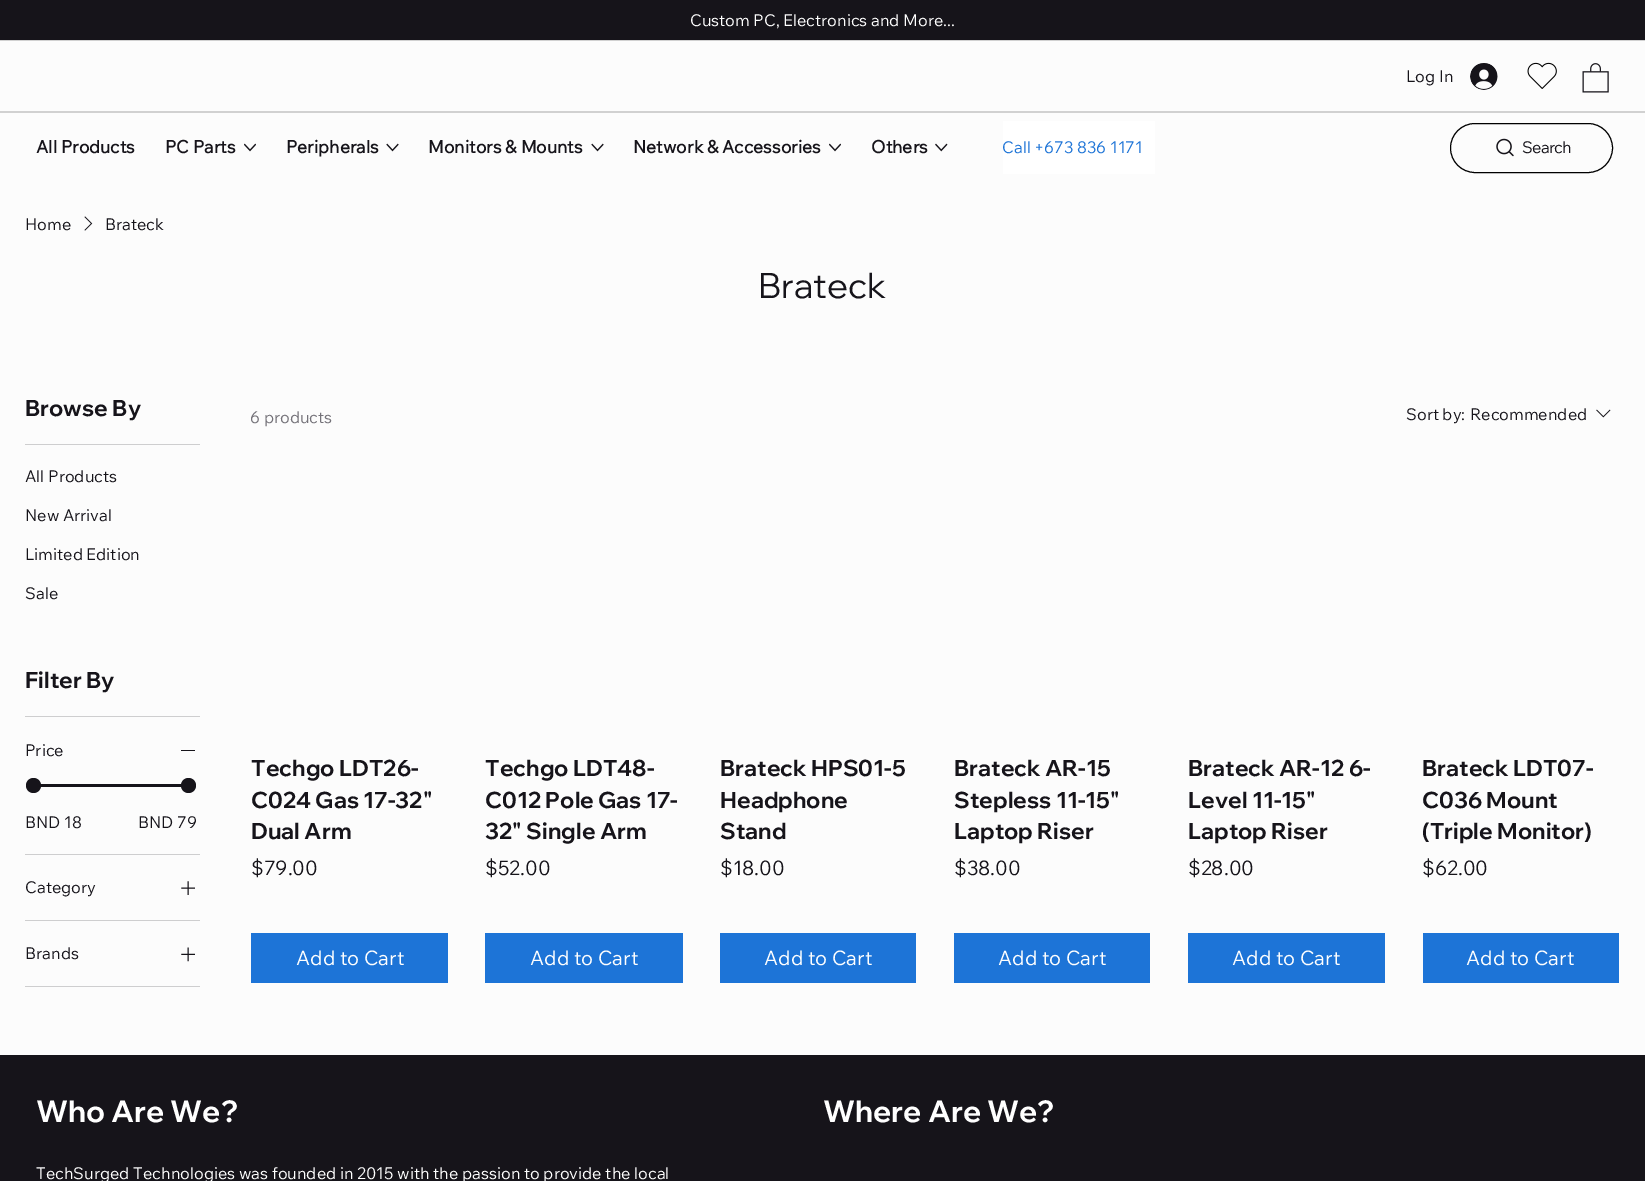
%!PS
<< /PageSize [1645 1181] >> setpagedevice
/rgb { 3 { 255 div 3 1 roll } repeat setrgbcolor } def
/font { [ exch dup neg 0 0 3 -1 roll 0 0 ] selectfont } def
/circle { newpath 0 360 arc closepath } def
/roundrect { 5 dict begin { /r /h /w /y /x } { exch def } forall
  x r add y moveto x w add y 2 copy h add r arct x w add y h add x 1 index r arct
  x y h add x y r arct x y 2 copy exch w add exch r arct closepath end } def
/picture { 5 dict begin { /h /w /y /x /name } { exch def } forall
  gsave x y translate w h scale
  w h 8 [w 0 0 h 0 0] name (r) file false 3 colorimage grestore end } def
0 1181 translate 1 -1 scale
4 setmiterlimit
252 252 252 rgb
0 0 1645 1181 rectfill
[
  [0 0 1645 40 22 20 26]
  [0 40 1645 73 209 209 209]
  [0 41 1645 70 252 252 252]
] { aload pop rgb rectfill } forall
(img/1.rgb) 1470 63 28 27 picture
(img/2.rgb) 1527 62 30 27 picture
(img/3.rgb) 1582 63 27 30 picture
(img/4.rgb) 244 143 12 9 picture
(img/5.rgb) 386 143 13 9 picture
(img/5.rgb) 591 143 13 9 picture
(img/4.rgb) 829 143 12 9 picture
(img/6.rgb) 935 143 13 9 picture
255 255 255 rgb
1003 121 152 53 rectfill
0 0 0 rgb
1450.5 123.5 162 49 24.5 roundrect stroke
(img/7.rgb) 1496 138 18 19 picture
(img/8.rgb) 84 216 9 15 picture
[
  [25 444 175 1 206 206 207]
  [25 716 175 1 206 206 207]
  [25 854 175 1 206 206 207]
  [181 750 14 1 22 20 26]
  [33 784 155 3 22 20 26]
] { aload pop rgb rectfill } forall
33.5 785.5 7.5 circle fill
188.5 785.5 7.5 circle fill
206 206 207 rgb
25 920 175 1 rectfill
(img/9.rgb) 181 881 14 14 picture
25 986 175 1 rectfill
(img/10.rgb) 181 947 14 15 picture
(img/11.rgb) 1596 409 15 9 picture
[
  [251 933 197 50 29 116 215]
  [485 933 198 50 29 116 215]
  [720 933 196 50 29 116 215]
  [954 933 196 50 29 116 215]
  [1188 933 197 50 29 116 215]
  [1423 933 196 50 29 116 215]
  [0 1055 1645 126 22 20 26]
] { aload pop rgb rectfill } forall
/WixMadeforText-Regular 16.25 font
255 255 255 rgb
690 26 moveto (Custom PC, Electronics and More...) show
22 20 26 rgb
1406 82 moveto (Log In) show
/WixMadeforText-Bold 17.5 font
[
  [(All Products) 36 153]
  [(PC Parts) 165 153]
  [(Peripherals) 286 153]
  [(Monitors & Mounts) 428 153]
  [(Network & Accessories) 633 153]
  [(Others) 871 153]
] { aload pop moveto show } forall
/WixMadeforText-Regular 16.25 font
29 116 215 rgb
1002 153 moveto (Call +673 836 1171) show
22 20 26 rgb
1522 153 moveto -0.75 0 (Search) ashow
25 230 moveto (Home) show
105 230 moveto (Brateck) show
/WixMadeforDisplay-Regular 35 font
758 298 moveto (Brateck) show
/WixMadeforDisplay-Bold 22.5 font
25 416 moveto (Browse By) show
/WixMadeforText-Regular 16.25 font
[
  [(All Products) 25 482]
  [(New Arrival) 25 521]
  [(Limited Edition) 25 560]
  [(Sale) 25 599]
] { aload pop moveto show } forall
/WixMadeforDisplay-Bold 22.5 font
25 688 moveto (Filter By) show
/WixMadeforText-Regular 16.25 font
[
  [(Price) 25 756]
  [(BND 18) 25 828]
  [(BND 79) 138 828]
  [(Category) 25 893]
  [(Brands) 25 959]
] { aload pop moveto show } forall
116 114 121 rgb
250 423 moveto (6 products) show
22 20 26 rgb
1406 420 moveto (Sort by:) show
1470 420 moveto (Recommended) show
/WixMadeforDisplay-Bold 22.5 font
[
  [(Techgo LDT26-) 251 776]
  [(C024 Gas 17-32") 251 808]
  [(Dual Arm) 251 839]
] { aload pop moveto show } forall
/WixMadeforText-Regular 20 font
251 875 moveto ($79.00) show
255 255 255 rgb
296 965 moveto (Add to Cart) show
/WixMadeforDisplay-Bold 22.5 font
22 20 26 rgb
[
  [(Techgo LDT48-) 485 776]
  [(C012 Pole Gas 17-) 485 808]
  [(32" Single Arm) 485 839]
] { aload pop moveto show } forall
/WixMadeforText-Regular 20 font
485 875 moveto ($52.00) show
255 255 255 rgb
530 965 moveto (Add to Cart) show
/WixMadeforDisplay-Bold 22.5 font
22 20 26 rgb
[
  [(Brateck HPS01-5) 720 776]
  [(Headphone) 720 808]
  [(Stand) 720 839]
] { aload pop moveto show } forall
/WixMadeforText-Regular 20 font
720 875 moveto ($18.00) show
255 255 255 rgb
764 965 moveto (Add to Cart) show
/WixMadeforDisplay-Bold 22.5 font
22 20 26 rgb
[
  [(Brateck AR-15) 954 776]
  [(Stepless 11-15") 954 808]
  [(Laptop Riser) 954 839]
] { aload pop moveto show } forall
/WixMadeforText-Regular 20 font
954 875 moveto ($38.00) show
255 255 255 rgb
998 965 moveto (Add to Cart) show
/WixMadeforDisplay-Bold 22.5 font
22 20 26 rgb
[
  [(Brateck AR-12 6-) 1188 776]
  [(Level 11-15") 1188 808]
  [(Laptop Riser) 1188 839]
] { aload pop moveto show } forall
/WixMadeforText-Regular 20 font
1188 875 moveto ($28.00) show
255 255 255 rgb
1232 965 moveto (Add to Cart) show
/WixMadeforDisplay-Bold 22.5 font
22 20 26 rgb
[
  [(Brateck LDT07-) 1422 776]
  [(C036 Mount) 1422 808]
  [(\(Triple Monitor\)) 1422 839]
] { aload pop moveto show } forall
/WixMadeforText-Regular 20 font
1422 875 moveto ($62.00) show
255 255 255 rgb
1466 965 moveto (Add to Cart) show
/WixMadeforDisplay-Bold 30 font
36 1122 moveto (Who Are We?) show
/WixMadeforText-Regular 16.25 font
36 1179 moveto (TechSurged Technologies was founded in 2015 with the passion to provide the local) show
/WixMadeforDisplay-Bold 30 font
823 1122 moveto (Where Are We?) show
showpage
